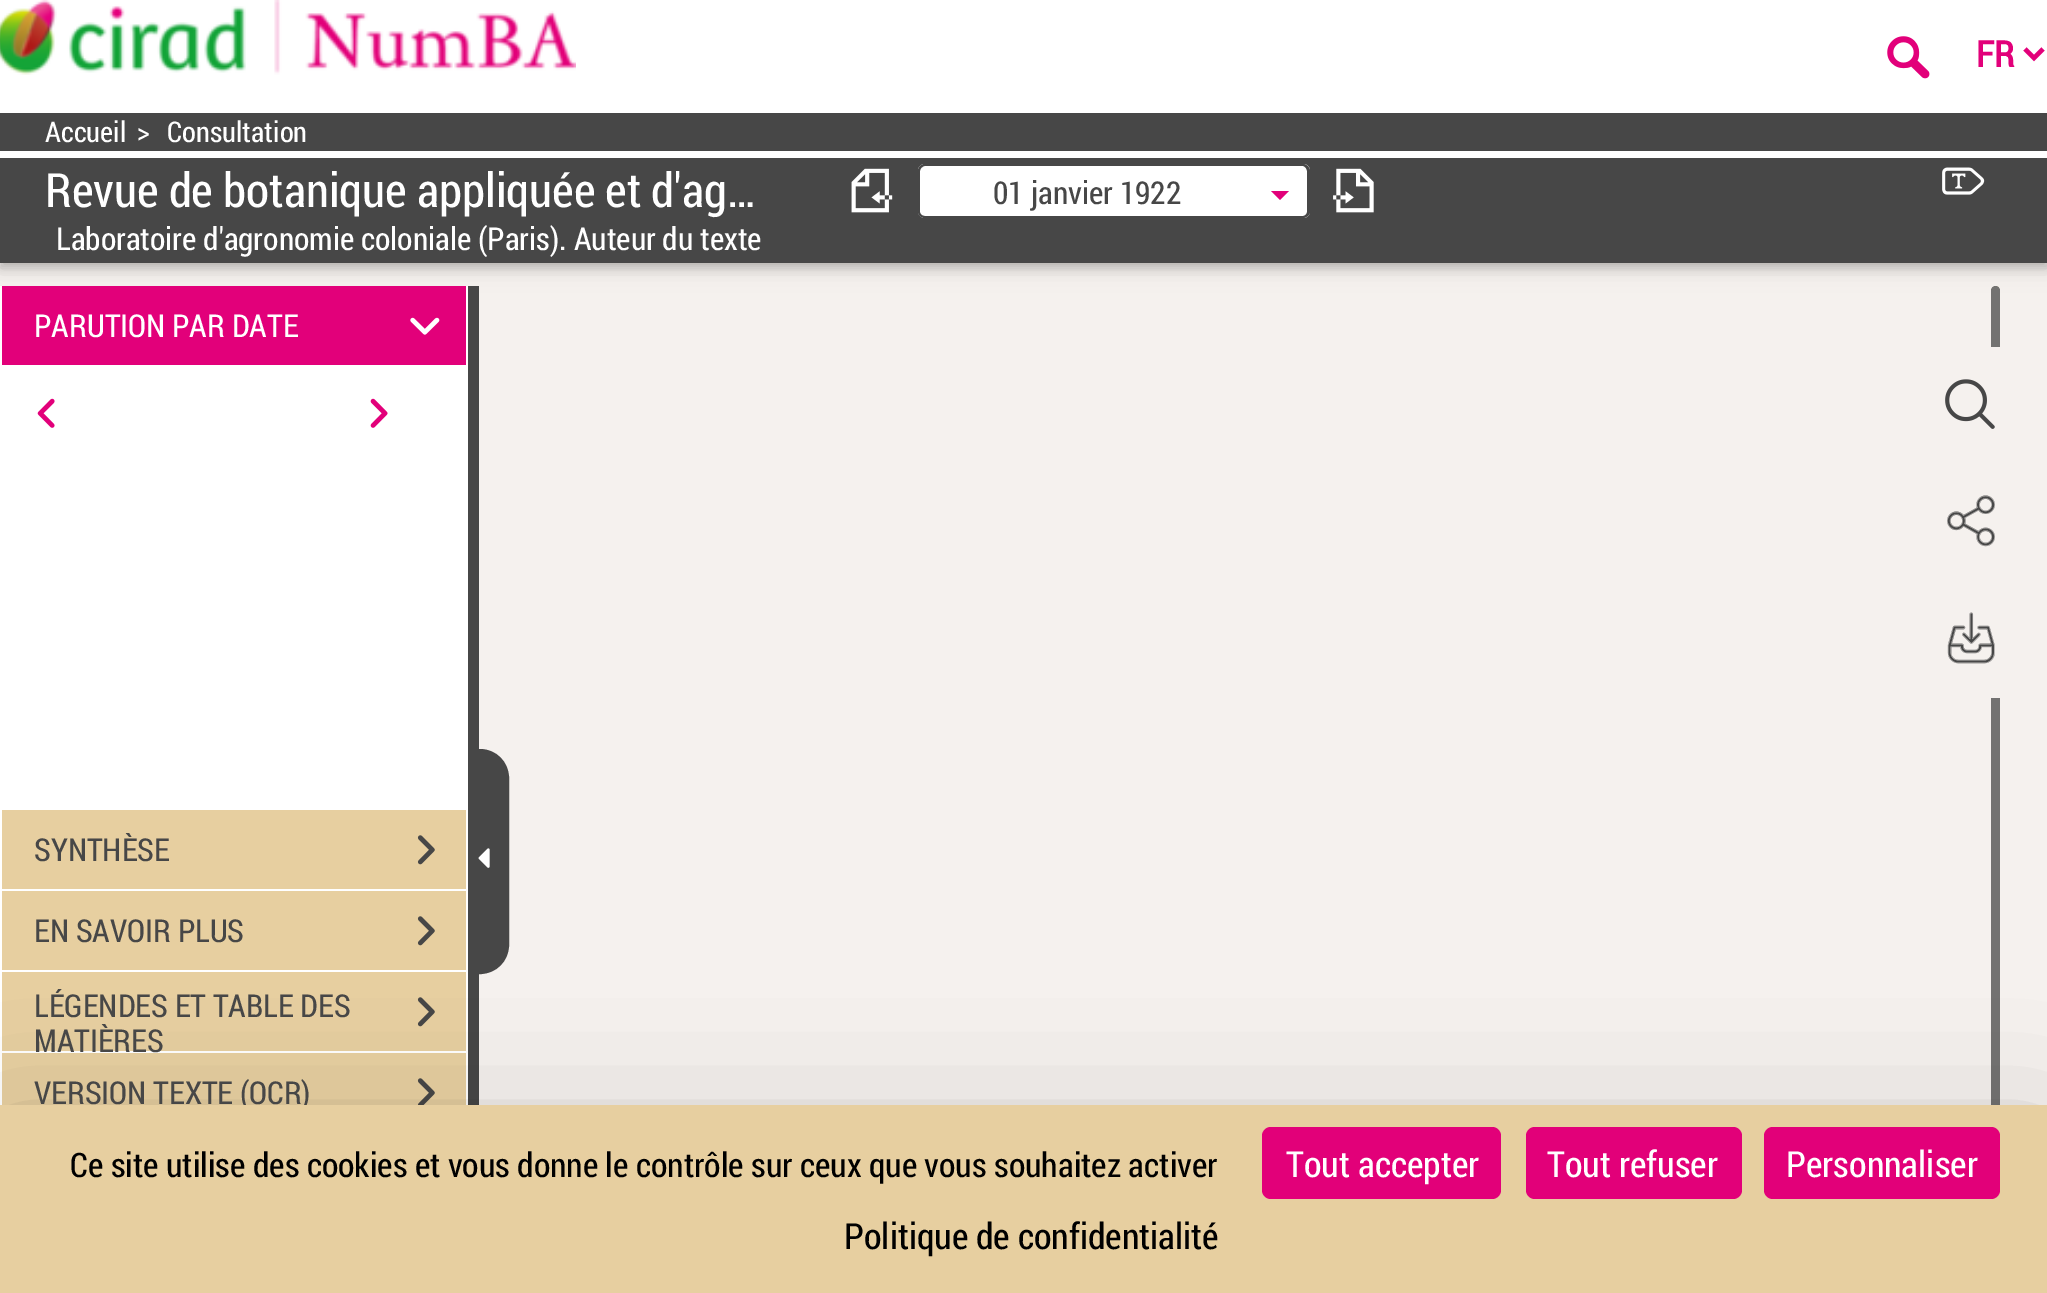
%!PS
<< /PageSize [2047 1293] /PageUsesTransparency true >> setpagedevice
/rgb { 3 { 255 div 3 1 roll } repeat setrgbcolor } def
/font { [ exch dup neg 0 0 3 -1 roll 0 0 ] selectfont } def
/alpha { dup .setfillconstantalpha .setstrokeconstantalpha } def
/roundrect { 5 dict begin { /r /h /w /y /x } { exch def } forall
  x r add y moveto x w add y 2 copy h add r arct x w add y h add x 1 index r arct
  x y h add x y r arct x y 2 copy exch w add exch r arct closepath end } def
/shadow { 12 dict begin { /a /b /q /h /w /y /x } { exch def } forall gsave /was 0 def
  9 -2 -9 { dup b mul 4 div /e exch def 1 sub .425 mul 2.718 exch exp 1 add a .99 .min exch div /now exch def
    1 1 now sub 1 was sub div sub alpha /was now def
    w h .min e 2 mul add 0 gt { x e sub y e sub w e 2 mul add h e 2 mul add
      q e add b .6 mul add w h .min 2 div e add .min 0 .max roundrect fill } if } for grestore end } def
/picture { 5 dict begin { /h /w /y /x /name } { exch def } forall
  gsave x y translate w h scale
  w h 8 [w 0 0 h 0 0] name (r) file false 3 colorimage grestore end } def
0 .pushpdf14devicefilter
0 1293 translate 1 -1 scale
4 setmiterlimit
245 241 238 rgb
0 0 2047 1293 rectfill
226 222 198 rgb
1994 286 5 985 2.5 roundrect fill
115 114 113 rgb
1991 286 9 963 4.5 roundrect fill
0 0 0 rgb
0 117 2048 151 0 11 0.12 shadow
0 117 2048 151 0 4.5 0.16 shadow
255 255 255 rgb
0 0 2047 113 rectfill
(img/1.rgb) 0 0 576 75 picture
(img/2.rgb) 1887 36 43 43 picture
226 0 122 rgb
4.5 setlinewidth
2025 49 moveto 2034 58 lineto 2043 49 lineto stroke
71 71 71 rgb
0 113 2047 150 rectfill
255 255 255 rgb
0 151 2047 7 rectfill
(img/3.rgb) 851 168 42 45 picture
925 164 moveto 1256 164 lineto 1256 218 lineto 925 218 lineto 921 218 918 215 918 211 curveto 918 171 lineto 918 167 921 164 925 164 curveto closepath fill
71 71 71 rgb
925 164 moveto 1256 164 lineto 1256 218 lineto 925 218 lineto 921 218 918 215 918 212 curveto 918 171 lineto 918 167 921 164 925 164 curveto closepath 925 166 moveto 1256 166 lineto 1256 216 lineto 925 216 lineto 922 216 920 214 920 212 curveto 920 171 lineto 920 169 922 166 925 166 curveto closepath eofill
255 255 255 rgb
1253 164 moveto 1303 164 lineto 1307 164 1310 167 1310 171 curveto 1310 211 lineto 1310 215 1307 218 1303 218 curveto 1253 218 lineto closepath fill
71 71 71 rgb
1253 164 moveto 1303 164 lineto 1306 164 1310 167 1310 171 curveto 1310 212 lineto 1310 215 1306 218 1303 218 curveto 1253 218 lineto closepath 1253 166 moveto 1303 166 lineto 1305 166 1307 169 1307 171 curveto 1307 212 lineto 1307 214 1305 216 1303 216 curveto 1253 216 lineto closepath eofill
226 0 122 rgb
1271 191 moveto 1289 191 lineto 1280 200 lineto closepath fill
(img/4.rgb) 1333 168 41 45 picture
(img/5.rgb) 1942 167 43 28 picture
[
  [468 286 11 819 71 71 71]
  [0 286 468 819 255 255 255]
  [2 286 464 79 226 0 122]
] { aload pop rgb rectfill } forall
(img/6.rgb) 410 317 30 18 picture
(img/7.rgb) 37 398 18 30 picture
(img/8.rgb) 370 398 18 30 picture
231 207 160 rgb
2 810 464 79 rectfill
(img/9.rgb) 417 835 18 30 picture
2 891 464 79 rectfill
(img/9.rgb) 417 916 18 30 picture
2 972 464 79 rectfill
(img/9.rgb) 417 997 18 30 picture
2 1053 464 52 rectfill
(img/10.rgb) 417 1078 18 27 picture
71 71 71 rgb
480 750 moveto 495.5 750 508 762.5 508 778 curveto 508 945 lineto 508 960.5 495.5 973 480 973 curveto closepath gsave fill grestore
2 setlinewidth
stroke
(img/11.rgb) 478 848 12 20 picture
245 241 238 rgb
1991 347 9 351 rectfill
(img/12.rgb) 1945 379 50 50 picture
(img/13.rgb) 1947 495 48 52 picture
(img/14.rgb) 1947 612 48 52 picture
0 0 0 rgb
0 1150 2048 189 0 67.5 0.25 shadow
/RobotoCondensed-Bold 36 font
226 0 122 rgb
1976 67 moveto (FR) show
/RobotoCondensed-Regular 28.5 font
255 255 255 rgb
[
  [(Accueil) 45 142]
  [(>) 137 142]
  [(Consultation) 167 142]
] { aload pop moveto show } forall
/RobotoCondensed-Regular 47.25 font
45 207 moveto (Revue de botanique appliquée et d'ag…) show
/RobotoCondensed-Regular 31.5 font
56 250 moveto (Laboratoire d'agronomie coloniale \(Paris\). Auteur du texte) show
71 71 71 rgb
993 204 moveto (01 janvier 1922) show
255 255 255 rgb
34 337 moveto (PARUTION PAR DATE) show
71 71 71 rgb
[
  [(SYNTHÈSE) 34 861]
  [(EN SAVOIR PLUS) 34 942]
  [(LÉGENDES ET TABLE DES) 34 1017]
  [(MATIÈRES) 34 1052]
  [(VERSION TEXTE \(OCR\)) 34 1104]
] { aload pop moveto show } forall
231 207 160 rgb
0 1105 2047 188 rectfill
/RobotoCondensed-Regular 33.75 font
0 0 0 rgb
70 1177 moveto (Ce site utilise des cookies et vous donne le contrôle sur ceux que vous souhaitez activer) show
226 0 121 rgb
1262 1127 239 72 9 roundrect fill
/RobotoCondensed-Regular 36 font
255 255 255 rgb
1286 1177 moveto (Tout accepter) show
226 0 121 rgb
1526 1127 216 72 9 roundrect fill
255 255 255 rgb
1547 1177 moveto (Tout refuser) show
226 0 121 rgb
1764 1127 236 72 9 roundrect fill
255 255 255 rgb
1786 1177 moveto (Personnaliser) show
0 0 0 rgb
844 1249 moveto (Politique de confidentialité) show
.poppdf14devicefilter showpage
